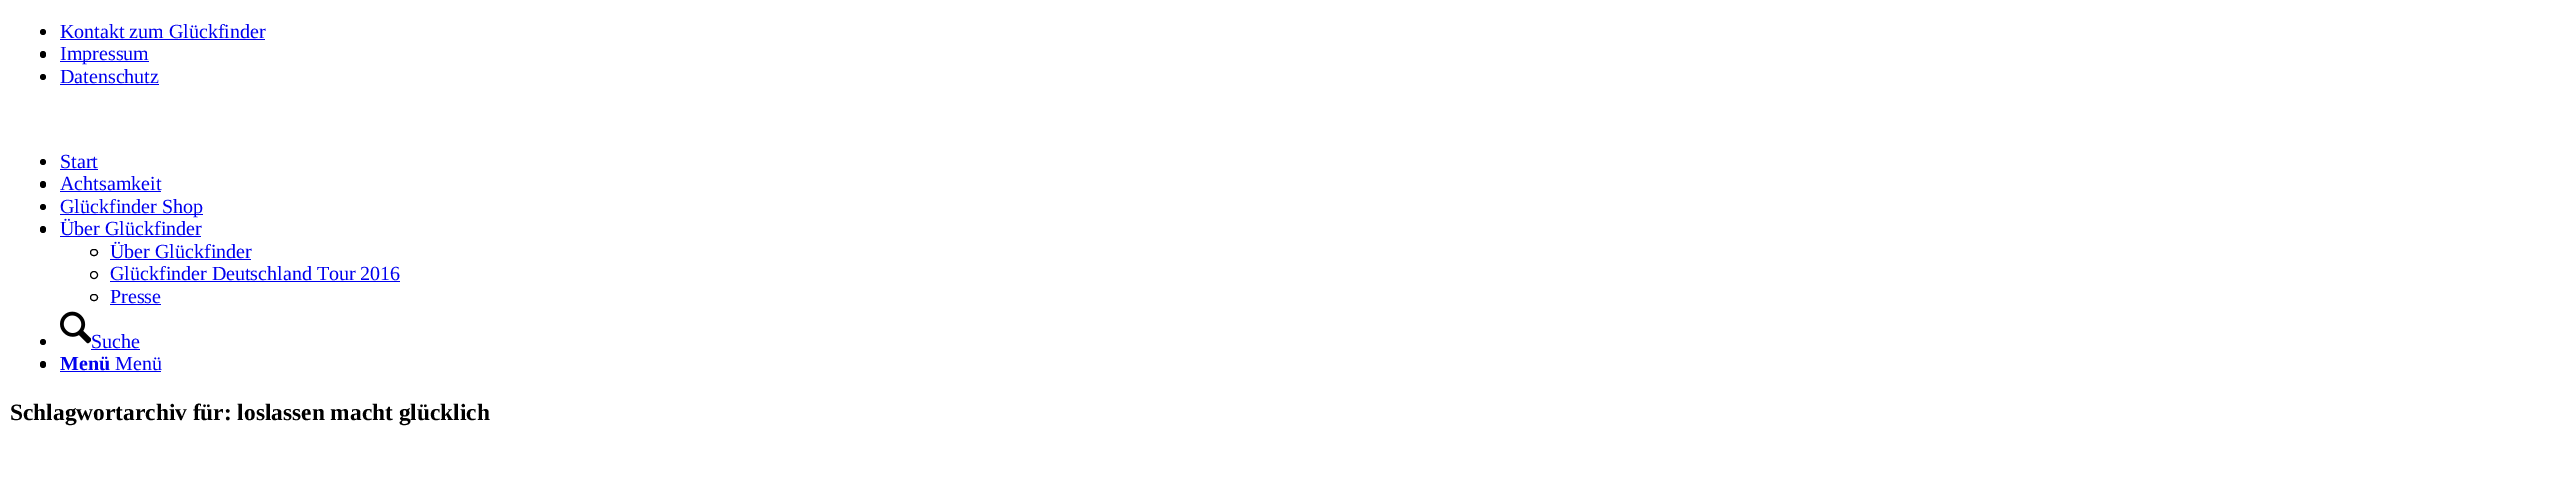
%!PS
<< /PageSize [2562 479] >> setpagedevice
/rgb { 3 { 255 div 3 1 roll } repeat setrgbcolor } def
/font { [ exch dup neg 0 0 3 -1 roll 0 0 ] selectfont } def
/circle { newpath 0 360 arc closepath } def
/roundrect { 5 dict begin { /r /h /w /y /x } { exch def } forall
  x r add y moveto x w add y 2 copy h add r arct x w add y h add x 1 index r arct
  x y h add x y r arct x y 2 copy exch w add exch r arct closepath end } def
/picture { 5 dict begin { /h /w /y /x /name } { exch def } forall
  gsave x y translate w h scale
  w h 8 [w 0 0 h 0 0] name (r) file false 3 colorimage grestore end } def
0 479 translate 1 -1 scale
4 setmiterlimit
255 255 255 rgb
0 0 2562 479 rectfill
0 0 0 rgb
43 32 3 circle fill
0 0 238 rgb
60 39 205 1 rectfill
0 0 0 rgb
40 51 6 7 3 roundrect fill
0 0 238 rgb
60 61 89 1 rectfill
0 0 0 rgb
43 77 3 circle fill
0 0 238 rgb
60 84 99 1 rectfill
0 0 0 rgb
43 162 3 circle fill
0 0 238 rgb
60 169 38 1 rectfill
0 0 0 rgb
40 181 6 7 3 roundrect fill
0 0 238 rgb
60 191 101 1 rectfill
0 0 0 rgb
43 207 3 circle fill
0 0 238 rgb
60 214 143 1 rectfill
0 0 0 rgb
40 226 6 7 3 roundrect fill
0 0 238 rgb
60 236 141 1 rectfill
0 0 0 rgb
90.5 249.5 7 6 3 roundrect stroke
0 0 238 rgb
110 259 141 1 rectfill
0 0 0 rgb
94 275 3.5 circle stroke
0 0 238 rgb
110 281 290 1 rectfill
0 0 0 rgb
90.5 294.5 7 6 3 roundrect stroke
0 0 238 rgb
110 304 51 1 rectfill
0 0 0 rgb
43 342 3 circle fill
(img/1.rgb) 60 311 31 33 picture
0 0 238 rgb
91 349 49 1 rectfill
0 0 0 rgb
40 361 6 7 3 roundrect fill
0 0 238 rgb
60 371 101 1 rectfill
/LiberationSerif-Regular 20 font
[
  [(Kontakt zum Glückfinder) 60 38]
  [(Impressum) 60 60]
  [(Datenschutz) 60 83]
  [(Start) 60 168]
  [(Achtsamkeit) 60 190]
  [(Glückfinder Shop) 60 213]
  [(Über Glückfinder) 60 235]
  [(Über Glückfinder) 110 258]
  [(Glückfinder Deutschland Tour 2016) 110 280]
  [(Presse) 110 303]
  [(Suche) 91 348]
] { aload pop moveto show } forall
/LiberationSerif-Bold 20 font
60 370 moveto (Menü) show
/LiberationSerif-Regular 20 font
115 370 moveto (Menü) show
/LiberationSerif-Bold 23.4 font
0 0 0 rgb
10 420 moveto (Schlagwortarchiv für: loslassen macht glücklich) show
showpage
